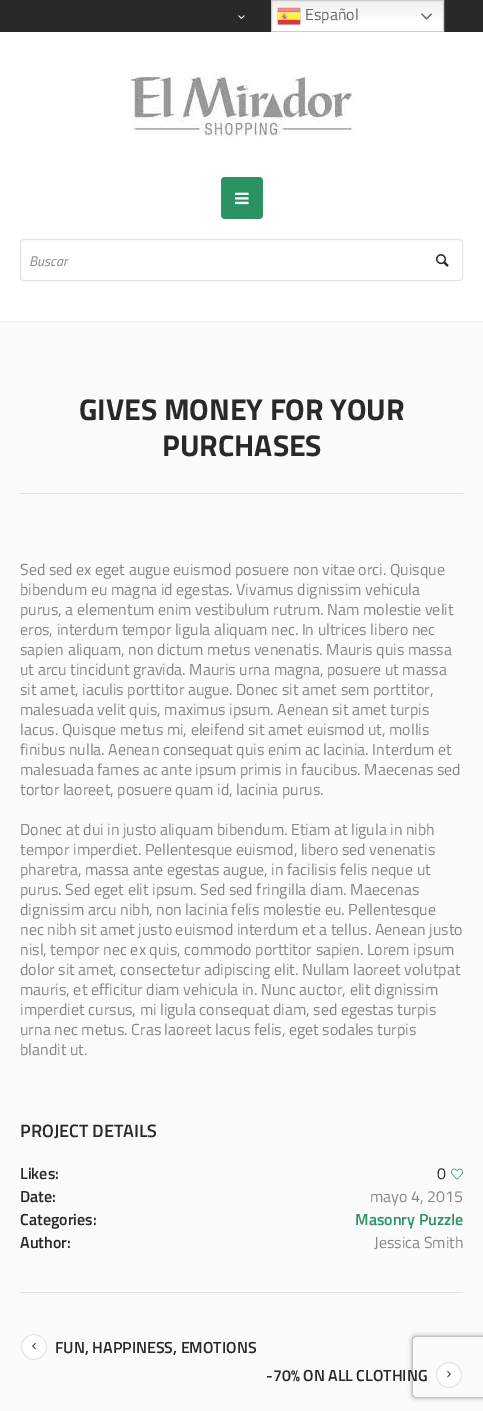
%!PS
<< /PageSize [483 1411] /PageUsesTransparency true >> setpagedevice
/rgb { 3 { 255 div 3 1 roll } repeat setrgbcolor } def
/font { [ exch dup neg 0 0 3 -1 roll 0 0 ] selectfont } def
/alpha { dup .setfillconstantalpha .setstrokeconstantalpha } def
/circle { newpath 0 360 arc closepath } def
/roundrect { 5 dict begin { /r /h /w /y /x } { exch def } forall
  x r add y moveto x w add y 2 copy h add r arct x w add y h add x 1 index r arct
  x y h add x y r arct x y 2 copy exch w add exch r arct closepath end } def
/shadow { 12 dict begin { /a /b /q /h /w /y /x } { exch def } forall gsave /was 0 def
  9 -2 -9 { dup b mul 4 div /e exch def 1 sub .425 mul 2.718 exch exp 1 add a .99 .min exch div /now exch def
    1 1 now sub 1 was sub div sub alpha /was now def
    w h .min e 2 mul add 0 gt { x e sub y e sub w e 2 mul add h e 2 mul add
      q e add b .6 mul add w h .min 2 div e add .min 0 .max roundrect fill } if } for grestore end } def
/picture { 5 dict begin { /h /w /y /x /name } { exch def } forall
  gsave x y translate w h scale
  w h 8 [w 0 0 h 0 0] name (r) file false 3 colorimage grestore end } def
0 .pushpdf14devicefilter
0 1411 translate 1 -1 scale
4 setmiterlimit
251 251 251 rgb
0 0 483 1411 rectfill
0 0 0 rgb
0 1 483 321 0 0.5 0.05 shadow
41 41 41 rgb
0 0 483 32 rectfill
gsave 272 1 moveto 443 1 lineto 443 31 lineto 272 31 lineto closepath clip newpath
<< /ShadingType 2 /ColorSpace /DeviceRGB /Coords [358 0 358 32] /Extend [true true] /Function << /FunctionType 3 /Domain [0 1] /Functions [<< /FunctionType 2 /Domain [0 1] /C0 [0.937 0.937 0.937] /C1 [1 1 1] /N 1 >> << /FunctionType 2 /Domain [0 1] /C0 [1 1 1] /C1 [1 1 1] /N 1 >>] /Bounds [0.7] /Encode [0 1 0 1] >> >> shfill grestore
204 204 204 rgb
271.5 0.5 172 31 rectstroke
(img/1.rgb) 277 7 24 19 picture
(img/2.rgb) 421 13 11 7 picture
(img/3.rgb) 238 15 7 4 picture
255 255 255 rgb
0 32 483 289 rectfill
(img/4.rgb) 130 72 223 65 picture
43 146 99 rgb
221 177 42 42 4 roundrect fill
(img/5.rgb) 235 192 14 13 picture
228 228 228 rgb
20.5 239.5 442 41 3.5 roundrect stroke
(img/6.rgb) 436 254 13 13 picture
[
  [20 1293 443 1 254 254 254]
  [20 1292 443 1 228 228 228]
  [20 494 443 1 254 254 254]
  [20 493 443 1 228 228 228]
] { aload pop rgb rectfill } forall
(img/7.rgb) 451 1168 12 12 picture
255 255 255 rgb
34 1347 12.5 circle gsave fill grestore
228 228 228 rgb
stroke
(img/8.rgb) 32 1342 4 8 picture
255 255 255 rgb
449 1375 12.5 circle gsave fill grestore
228 228 228 rgb
stroke
(img/9.rgb) 447 1370 4 8 picture
gsave
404 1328 moveto 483 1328 lineto 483 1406 lineto 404 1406 lineto closepath 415 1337 moveto 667 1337 lineto 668 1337 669 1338 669 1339 curveto 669 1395 lineto 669 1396 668 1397 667 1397 curveto 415 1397 lineto 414 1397 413 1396 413 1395 curveto 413 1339 lineto 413 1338 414 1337 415 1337 curveto closepath eoclip newpath
128 128 128 rgb
413 1337 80 60 2 2.5 1 shadow
grestore
/TitilliumWeb-Regular 16 font
102 102 102 rgb
305 20 moveto (Español) show
/TitilliumWeb-Italic 14 font
135 135 135 rgb
29 266 moveto (Buscar) show
/TitilliumWeb-Bold 30 font
41 41 41 rgb
79 420 moveto (GIVES MONEY FOR YOUR) show
162 456 moveto (PURCHASES) show
/TitilliumWeb-Regular 16 font
135 135 135 rgb
[
  [(Sed sed ex eget augue euismod posuere non vitae orci. Quisque) 20 575]
  [(bibendum eu magna id egestas. Vivamus dignissim vehicula) 20 595]
  [(purus, a elementum enim vestibulum rutrum. Nam molestie velit) 20 615]
  [(eros, interdum tempor ligula aliquam nec. In ultrices libero nec) 20 635]
  [(sapien aliquam, non dictum metus venenatis. Mauris quis massa) 20 655]
  [(ut arcu tincidunt gravida. Mauris urna magna, posuere ut massa) 20 675]
  [(sit amet, iaculis porttitor augue. Donec sit amet sem porttitor,) 20 695]
  [(malesuada velit quis, maximus ipsum. Aenean sit amet turpis) 20 715]
  [(lacus. Quisque metus mi, eleifend sit amet euismod ut, mollis) 20 735]
  [(finibus nulla. Aenean consequat quis enim ac lacinia. Interdum et) 20 755]
  [(malesuada fames ac ante ipsum primis in faucibus. Maecenas sed) 20 775]
  [(tortor laoreet, posuere quam id, lacinia purus.) 20 795]
  [(Donec at dui in justo aliquam bibendum. Etiam at ligula in nibh) 20 835]
  [(tempor imperdiet. Pellentesque euismod, libero sed venenatis) 20 855]
  [(pharetra, massa ante egestas augue, in facilisis felis neque ut) 20 875]
  [(purus. Sed eget elit ipsum. Sed sed fringilla diam. Maecenas) 20 895]
  [(dignissim arcu nibh, non lacinia felis molestie eu. Pellentesque) 20 915]
  [(nec nibh sit amet justo euismod interdum et a tellus. Aenean justo) 20 935]
  [(nisl, tempor nec ex quis, commodo porttitor sapien. Lorem ipsum) 20 955]
  [(dolor sit amet, consectetur adipiscing elit. Nullam laoreet volutpat) 20 975]
  [(mauris, et efficitur diam vehicula in. Nunc auctor, elit dignissim) 20 995]
  [(imperdiet cursus, mi ligula consequat diam, sed egestas turpis) 20 1015]
  [(urna nec metus. Cras laoreet lacus felis, eget sodales turpis) 20 1035]
  [(blandit ut.) 20 1055]
] { aload pop moveto show } forall
/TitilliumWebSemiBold-SemiBold 18 font
41 41 41 rgb
20 1137 moveto (PROJECT DETAILS) show
/TitilliumWebSemiBold-SemiBold 16 font
20 1179 moveto (Likes:) show
/TitilliumWeb-Regular 16 font
437 1179 moveto (0) show
/TitilliumWebSemiBold-SemiBold 16 font
20 1202 moveto (Date:) show
/TitilliumWeb-Regular 16 font
135 135 135 rgb
370 1202 moveto (mayo 4, 2015) show
/TitilliumWebSemiBold-SemiBold 16 font
41 41 41 rgb
20 1225 moveto (Categories:) show
43 146 99 rgb
355 1225 moveto (Masonry Puzzle) show
41 41 41 rgb
20 1248 moveto (Author:) show
/TitilliumWeb-Regular 16 font
135 135 135 rgb
374 1248 moveto (Jessica Smith) show
/TitilliumWebSemiBold-SemiBold 16 font
41 41 41 rgb
55 1353 moveto (FUN, HAPPINESS, EMOTIONS) show
266 1381 moveto (-70% ON ALL CLOTHING) show
.poppdf14devicefilter showpage
